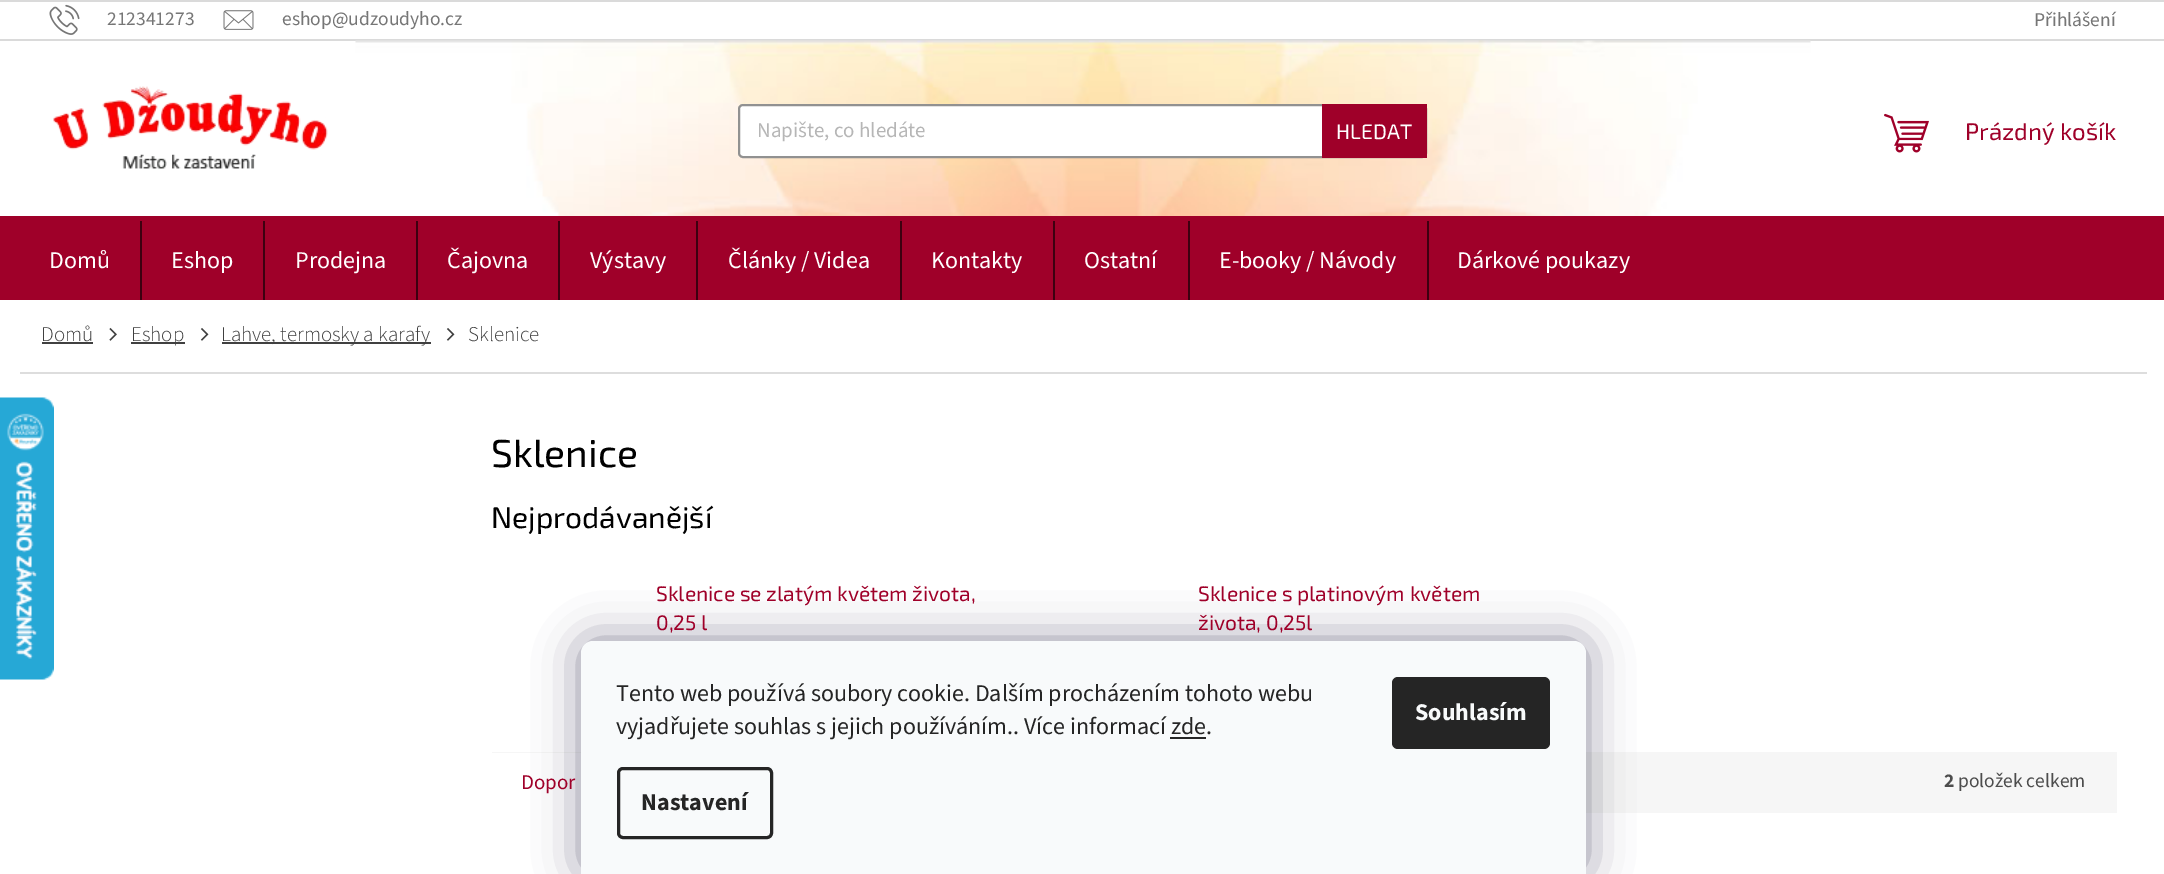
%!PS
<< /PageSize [2164 874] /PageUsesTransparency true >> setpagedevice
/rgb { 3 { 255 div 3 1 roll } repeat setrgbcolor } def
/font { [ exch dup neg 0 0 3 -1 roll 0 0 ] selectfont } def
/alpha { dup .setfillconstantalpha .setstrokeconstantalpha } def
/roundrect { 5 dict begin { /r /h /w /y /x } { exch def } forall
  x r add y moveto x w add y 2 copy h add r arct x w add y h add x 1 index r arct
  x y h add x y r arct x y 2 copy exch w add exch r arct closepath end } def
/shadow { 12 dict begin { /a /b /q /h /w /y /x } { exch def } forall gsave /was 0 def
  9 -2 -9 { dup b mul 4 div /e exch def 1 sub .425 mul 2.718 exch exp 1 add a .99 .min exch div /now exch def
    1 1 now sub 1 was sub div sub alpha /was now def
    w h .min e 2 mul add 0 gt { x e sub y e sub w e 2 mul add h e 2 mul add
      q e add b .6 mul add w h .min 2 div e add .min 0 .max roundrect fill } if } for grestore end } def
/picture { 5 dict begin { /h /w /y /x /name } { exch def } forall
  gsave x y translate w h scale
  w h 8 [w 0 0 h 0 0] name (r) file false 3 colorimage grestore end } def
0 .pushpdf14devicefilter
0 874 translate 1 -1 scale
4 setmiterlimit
255 255 255 rgb
0 0 2164 874 rectfill
(img/1.rgb) 0 397 54 283 picture
218 218 218 rgb
0 0 2164 2 rectfill
0 39 2164 2 rectfill
(img/2.rgb) 49 4 31 31 picture
(img/3.rgb) 223 10 31 20 picture
(img/4.rgb) 355 40 1456 176 picture
(img/5.rgb) 53 86 275 83 picture
255 255 255 rgb
739 105 687 52 4 roundrect gsave fill grestore
145 145 145 rgb
2 setlinewidth
stroke
159 0 41 rgb
1322 104 105 54 rectfill
(img/6.rgb) 1884 113 45 40 picture
[
  [0 216 2164 84 159 0 41]
  [140 221 2 79 61 0 16]
  [263 221 2 79 61 0 16]
  [416 221 2 79 61 0 16]
  [558 221 2 79 61 0 16]
  [696 221 2 79 61 0 16]
  [900 221 2 79 61 0 16]
  [1053 221 2 79 61 0 16]
  [1188 221 2 79 61 0 16]
  [1427 221 2 79 61 0 16]
  [20 372 2127 2 221 221 221]
  [42 342 51 2 64 64 64]
] { aload pop rgb rectfill } forall
(img/7.rgb) 109 327 8 14 picture
131 342 54 2 rectfill
(img/8.rgb) 200 328 9 13 picture
222 342 209 2 rectfill
(img/8.rgb) 446 328 9 13 picture
246 246 246 rgb
492 752 1625 61 rectfill
255 255 255 rgb
492 753 89 60 rectfill
27 25 57 rgb
581 641 1005 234 12 22.5 0.5 shadow
248 250 251 rgb
593 641 moveto 1574 641 lineto 1580.5 641 1586 646.5 1586 653 curveto 1586 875 lineto 581 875 lineto 581 653 lineto 581 646.5 586.5 641 593 641 curveto closepath fill
37 37 37 rgb
1170 737 36 2 rectfill
3 setlinewidth
618.5 768.5 153 69 4.5 roundrect stroke
1392 677 158 72 6 roundrect fill
/SourceSans3-Regular 19.5 font
118 118 118 rgb
[
  [(212341273) 107 25]
  [(eshop@udzoudyho.cz) 282 25]
  [(Přihlášení) 2034 26]
] { aload pop moveto show } forall
/SourceSans3-Regular 21 font
182 182 182 rgb
757 137 moveto (Napište, co hledáte) show
/Exo2-Regular 21 font
255 255 255 rgb
1336 139 moveto (HLEDAT) show
/Exo2-Regular 24 font
159 0 41 rgb
1965 140 moveto (Prázdný košík) show
/SourceSans3-Regular 24 font
255 255 255 rgb
[
  [(Domů) 49 268]
  [(Eshop) 171 268]
  [(Prodejna) 295 268]
  [(Čajovna) 447 268]
  [(Výstavy) 590 268]
  [(Články / Videa) 728 268]
  [(Kontakty) 931 268]
  [(Ostatní) 1084 268]
  [(E-booky / Návody) 1219 268]
  [(Dárkové poukazy) 1457 268]
] { aload pop moveto show } forall
/SourceSans3-Light 21 font
64 64 64 rgb
[
  [(Domů) 41 341]
  [(Eshop) 131 341]
  [(Lahve, termosky a karafy) 221 341]
  [(Sklenice) 468 341]
] { aload pop moveto show } forall
/Exo2-Regular 39 font
0 0 0 rgb
491 467 moveto (Sklenice) show
/Exo2-Regular 30 font
491 528 moveto (Nejprodávanější) show
/Exo2-Regular 21 font
159 0 41 rgb
[
  [(Sklenice se zlatým květem života,) 656 601]
  [(0,25 l) 656 630]
  [(Sklenice s platinovým květem) 1198 601]
  [(života, 0,25l) 1198 630]
] { aload pop moveto show } forall
/SourceSans3-Regular 21 font
521 789 moveto (Dopor) show
/SourceSans3-Bold 19.5 font
77 77 77 rgb
1944 787 moveto (2) show
/SourceSans3-Regular 19.5 font
1958 787 moveto (položek celkem) show
/SourceSans3-Regular 24 font
37 37 37 rgb
616 701 moveto (Tento web používá soubory cookie. Dalším procházením tohoto webu) show
616 734 moveto (vyjadřujete souhlas s jejich používáním.. Více informací zde.) show
/SourceSans3-Bold 24 font
641 810 moveto (Nastavení) show
248 250 251 rgb
1415 720 moveto (Souhlasím) show
.poppdf14devicefilter showpage
